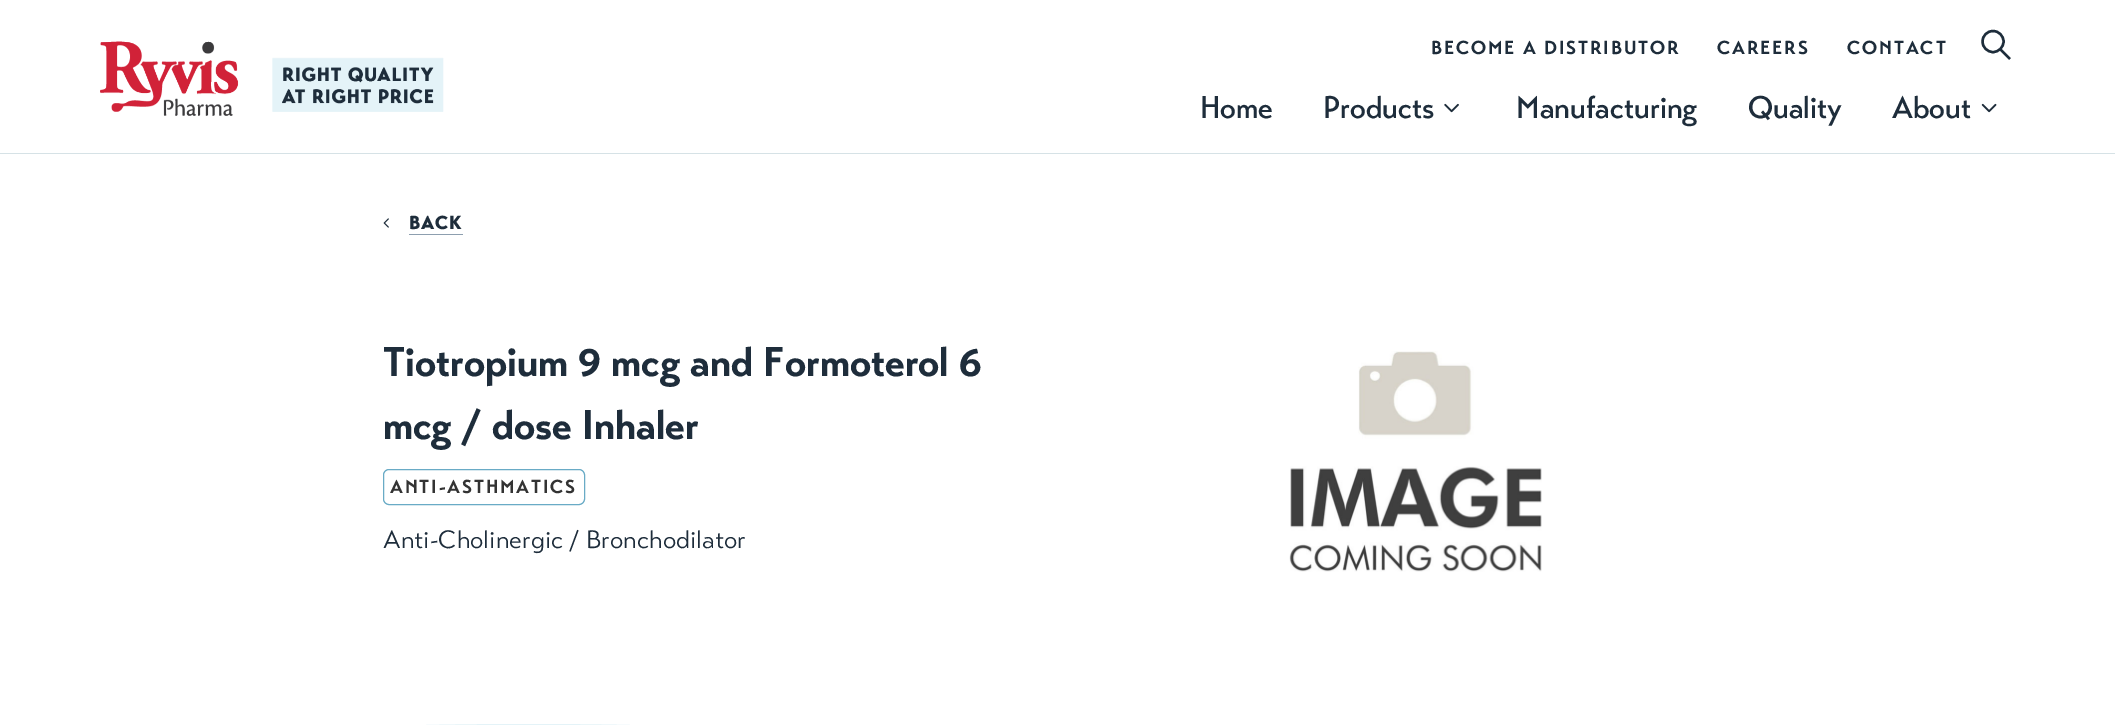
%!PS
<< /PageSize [2115 725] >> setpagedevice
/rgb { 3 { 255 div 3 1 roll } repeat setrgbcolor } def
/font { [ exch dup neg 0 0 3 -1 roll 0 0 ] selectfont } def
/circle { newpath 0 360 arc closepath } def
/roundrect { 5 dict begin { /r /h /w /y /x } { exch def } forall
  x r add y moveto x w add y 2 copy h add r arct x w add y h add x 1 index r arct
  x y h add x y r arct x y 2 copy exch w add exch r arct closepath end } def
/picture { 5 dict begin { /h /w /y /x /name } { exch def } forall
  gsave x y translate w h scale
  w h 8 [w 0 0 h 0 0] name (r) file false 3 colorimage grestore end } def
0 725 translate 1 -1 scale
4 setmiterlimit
255 255 255 rgb
0 0 2115 725 rectfill
214 226 230 rgb
0 153 2115 1 rectfill
(img/1.rgb) 100 41 344 75 picture
30 45 59 rgb
2.4 setlinewidth
1993 41.5 10.5 circle stroke
2000 49 moveto 2010 59 lineto stroke
(img/2.rgb) 1444 103 15 10 picture
(img/3.rgb) 1981 103 16 10 picture
(img/4.rgb) 383 218 6 10 picture
141 159 175 rgb
409 234 54 1 rectfill
105 171 198 rgb
1 setlinewidth
383.5 469.5 201 35 5.5 roundrect stroke
(img/5.rgb) 1289 351 253 221 picture
228 243 248 rgb
529 724 moveto 1058 724 1058 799 1586 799 curveto 1851 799 1983 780 2115 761 curveto 2115 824 lineto 0 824 lineto 0 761 lineto 132 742 264 724 529 724 curveto closepath fill
/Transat-Bold 18.75 font
30 45 59 rgb
1431 54 moveto 1.9 0 (BECOME A DISTRIBUTOR) ashow
1717 54 moveto 1.9 0 (CAREERS) ashow
1847 54 moveto 1.9 0 (CONTACT) ashow
/Transat-Medium 31.25 font
[
  [(Home) 1200 118]
  [(Products) 1323 118]
  [(Manufacturing) 1516 118]
  [(Quality) 1748 118]
  [(About) 1892 118]
] { aload pop moveto show } forall
/Transat-Black 18.75 font
409 229 moveto 1 0 (BACK) ashow
/Transat-Bold 41.25 font
383 376 moveto (Tiotropium 9 mcg and Formoterol 6) show
383 439 moveto (mcg / dose Inhaler) show
/Transat-Bold 18.75 font
51 51 51 rgb
390 493 moveto 1.9 0 (ANTI-ASTHMATICS) ashow
/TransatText-Regular 25 font
30 45 59 rgb
383 548 moveto (Anti-Cholinergic / Bronchodilator) show
showpage
